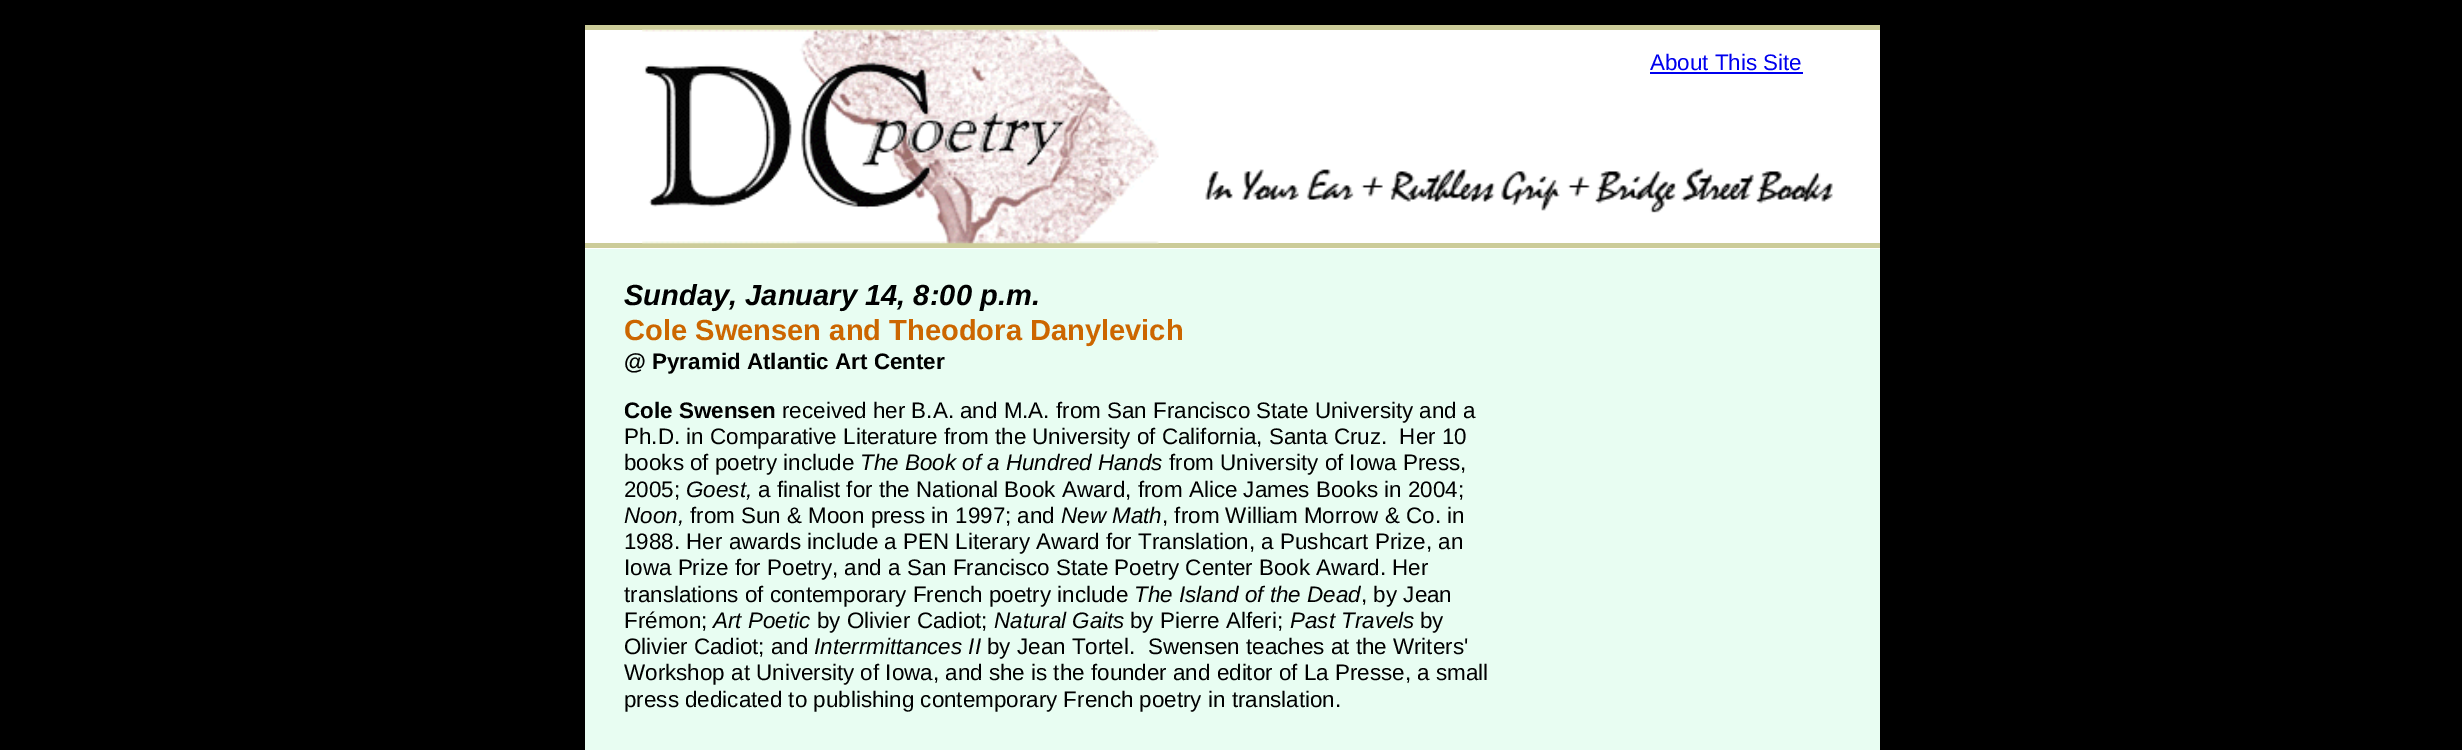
%!PS
<< /PageSize [2462 750] >> setpagedevice
/rgb { 3 { 255 div 3 1 roll } repeat setrgbcolor } def
/font { [ exch dup neg 0 0 3 -1 roll 0 0 ] selectfont } def
/picture { 5 dict begin { /h /w /y /x /name } { exch def } forall
  gsave x y translate w h scale
  w h 8 [w 0 0 h 0 0] name (r) file false 3 colorimage grestore end } def
0 750 translate 1 -1 scale
4 setmiterlimit
0 0 0 rgb
0 0 2462 750 rectfill
[
  [585 249 1295 501 232 253 242]
  [585 30 1295 219 255 255 255]
  [585 25 1295 5 204 204 153]
  [585 243 1295 5 204 204 153]
] { aload pop rgb rectfill } forall
(img/1.rgb) 642 29 517 215 picture
0 0 238 rgb
1650 72 153 2 rectfill
(img/2.rgb) 1205 167 628 46 picture
/LiberationSans-Regular 22.4 font
1650 70 moveto (About This Site) show
/LiberationSans-BoldItalic 29.1 font
0 0 0 rgb
624 305 moveto (Sunday, January 14, 8:00 p.m.) show
/LiberationSans-Bold 29.1 font
204 102 0 rgb
624 340 moveto (Cole Swensen and Theodora Danylevich) show
/LiberationSans-Bold 22.4 font
0 0 0 rgb
624 369 moveto (@ Pyramid Atlantic Art Center) show
624 418 moveto (Cole Swensen) show
/LiberationSans-Regular 22.4 font
[
  [(received her B.A. and M.A. from San Francisco State University and a) 782 418]
  [(Ph.D. in Comparative Literature from the University of California, Santa Cruz.  Her 10) 624 444]
  [(books of poetry include) 624 470]
] { aload pop moveto show } forall
/LiberationSans-Italic 22.4 font
860 470 moveto (The Book of a Hundred Hands) show
/LiberationSans-Regular 22.4 font
1169 470 moveto (from University of Iowa Press,) show
624 497 moveto (2005;) show
/LiberationSans-Italic 22.4 font
686 497 moveto (Goest,) show
/LiberationSans-Regular 22.4 font
758 497 moveto (a finalist for the National Book Award, from Alice James Books in 2004;) show
/LiberationSans-Italic 22.4 font
624 523 moveto (Noon,) show
/LiberationSans-Regular 22.4 font
690 523 moveto (from Sun & Moon press in 1997; and) show
/LiberationSans-Italic 22.4 font
1061 523 moveto (New Math) show
/LiberationSans-Regular 22.4 font
[
  [(, from William Morrow & Co. in) 1162 523]
  [(1988. Her awards include a PEN Literary Award for Translation, a Pushcart Prize, an) 624 549]
  [(Iowa Prize for Poetry, and a San Francisco State Poetry Center Book Award. Her) 624 575]
  [(translations of contemporary French poetry include) 624 602]
] { aload pop moveto show } forall
/LiberationSans-Italic 22.4 font
1134 602 moveto (The Island of the Dead) show
/LiberationSans-Regular 22.4 font
1361 602 moveto (, by Jean) show
624 628 moveto (Frémon;) show
/LiberationSans-Italic 22.4 font
713 628 moveto (Art Poetic) show
/LiberationSans-Regular 22.4 font
817 628 moveto (by Olivier Cadiot;) show
/LiberationSans-Italic 22.4 font
994 628 moveto (Natural Gaits) show
/LiberationSans-Regular 22.4 font
1130 628 moveto (by Pierre Alferi;) show
/LiberationSans-Italic 22.4 font
1290 628 moveto (Past Travels) show
/LiberationSans-Regular 22.4 font
1420 628 moveto (by) show
624 654 moveto (Olivier Cadiot; and) show
/LiberationSans-Italic 22.4 font
814 654 moveto (Interrmittances II) show
/LiberationSans-Regular 22.4 font
[
  [(by Jean Tortel.  Swensen teaches at the Writers') 987 654]
  [(Workshop at University of Iowa, and she is the founder and editor of La Presse, a small) 624 680]
  [(press dedicated to publishing contemporary French poetry in translation.) 624 707]
] { aload pop moveto show } forall
showpage
